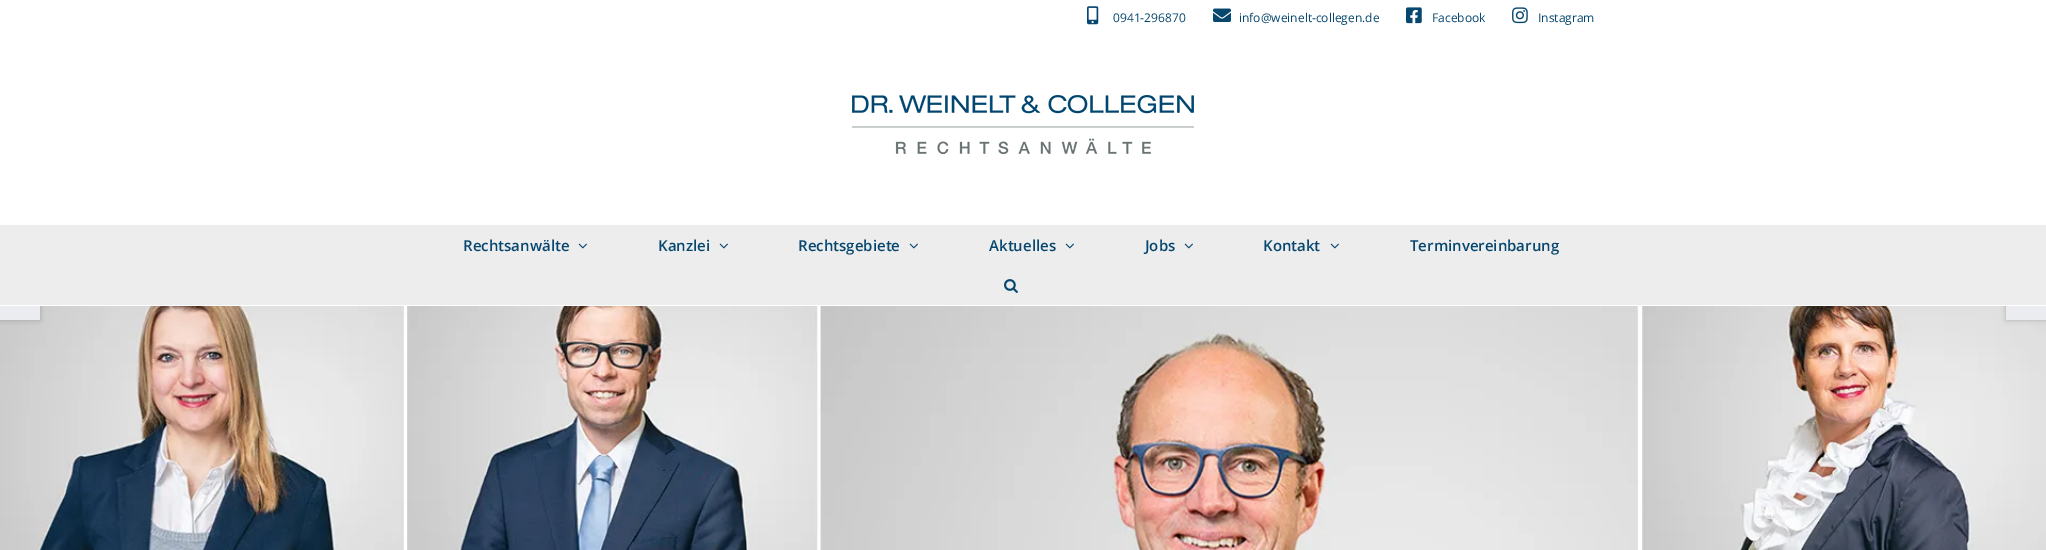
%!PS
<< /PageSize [2046 550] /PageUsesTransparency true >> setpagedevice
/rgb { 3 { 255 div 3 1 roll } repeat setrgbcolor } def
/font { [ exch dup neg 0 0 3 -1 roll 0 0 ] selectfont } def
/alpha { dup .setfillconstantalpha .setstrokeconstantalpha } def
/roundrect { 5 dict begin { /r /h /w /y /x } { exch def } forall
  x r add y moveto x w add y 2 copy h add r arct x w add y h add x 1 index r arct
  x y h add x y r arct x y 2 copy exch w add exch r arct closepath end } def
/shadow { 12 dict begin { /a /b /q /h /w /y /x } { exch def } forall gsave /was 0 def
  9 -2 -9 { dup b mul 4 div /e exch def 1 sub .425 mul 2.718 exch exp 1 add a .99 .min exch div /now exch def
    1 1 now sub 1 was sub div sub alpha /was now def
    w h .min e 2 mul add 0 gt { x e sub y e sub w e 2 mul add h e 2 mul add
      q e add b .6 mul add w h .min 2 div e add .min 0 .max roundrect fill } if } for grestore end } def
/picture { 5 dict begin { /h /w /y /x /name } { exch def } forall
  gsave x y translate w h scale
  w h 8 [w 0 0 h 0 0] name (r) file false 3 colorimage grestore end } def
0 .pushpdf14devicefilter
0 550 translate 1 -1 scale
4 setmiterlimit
255 255 255 rgb
0 0 2046 550 rectfill
(img/1.rgb) 1087 6 12 19 picture
(img/2.rgb) 1213 8 18 14 picture
(img/3.rgb) 1406 7 16 17 picture
(img/4.rgb) 1512 7 16 17 picture
(img/5.rgb) 852 95 342 59 picture
(img/8.rgb) 0 306 2046 244 picture
234 236 239 rgb
0 306 40 14 rectfill
gsave
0 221 moveto 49 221 lineto 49 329 lineto 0 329 lineto closepath -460 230 moveto 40 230 lineto 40 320 lineto -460 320 lineto closepath eoclip newpath
0 0 0 rgb
-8 230 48 90 0 2.5 0.2 shadow
grestore
2006 306 40 14 rectfill
gsave
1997 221 moveto 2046 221 lineto 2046 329 lineto 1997 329 lineto closepath 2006 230 moveto 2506 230 lineto 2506 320 lineto 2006 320 lineto closepath eoclip newpath
0 0 0 rgb
2006 230 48 90 0 2.5 0.2 shadow
grestore
237 237 237 rgb
0 225 2046 80 rectfill
255 255 255 rgb
40 305 1966 1 rectfill
(img/6.rgb) 578 243 9 6 picture
(img/6.rgb) 719 243 9 6 picture
(img/6.rgb) 909 243 9 6 picture
(img/6.rgb) 1065 243 9 6 picture
(img/6.rgb) 1184 243 9 6 picture
(img/6.rgb) 1330 243 9 6 picture
(img/7.rgb) 1004 279 14 14 picture
/OpenSans-Regular 12 font
7 71 111 rgb
[
  [(0941-296870) 1113 22]
  [(info@weinelt-collegen.de) 1239 22]
  [(Facebook) 1432 22]
  [(Instagram) 1538 22]
] { aload pop moveto show } forall
/OpenSans-SemiBold 15 font
[
  [(Rechtsanwälte) 463 251]
  [(Kanzlei) 658 251]
  [(Rechtsgebiete) 798 251]
  [(Aktuelles) 989 251]
  [(Jobs) 1145 251]
  [(Kontakt) 1263 251]
  [(Terminvereinbarung) 1410 251]
] { aload pop moveto show } forall
.poppdf14devicefilter showpage
